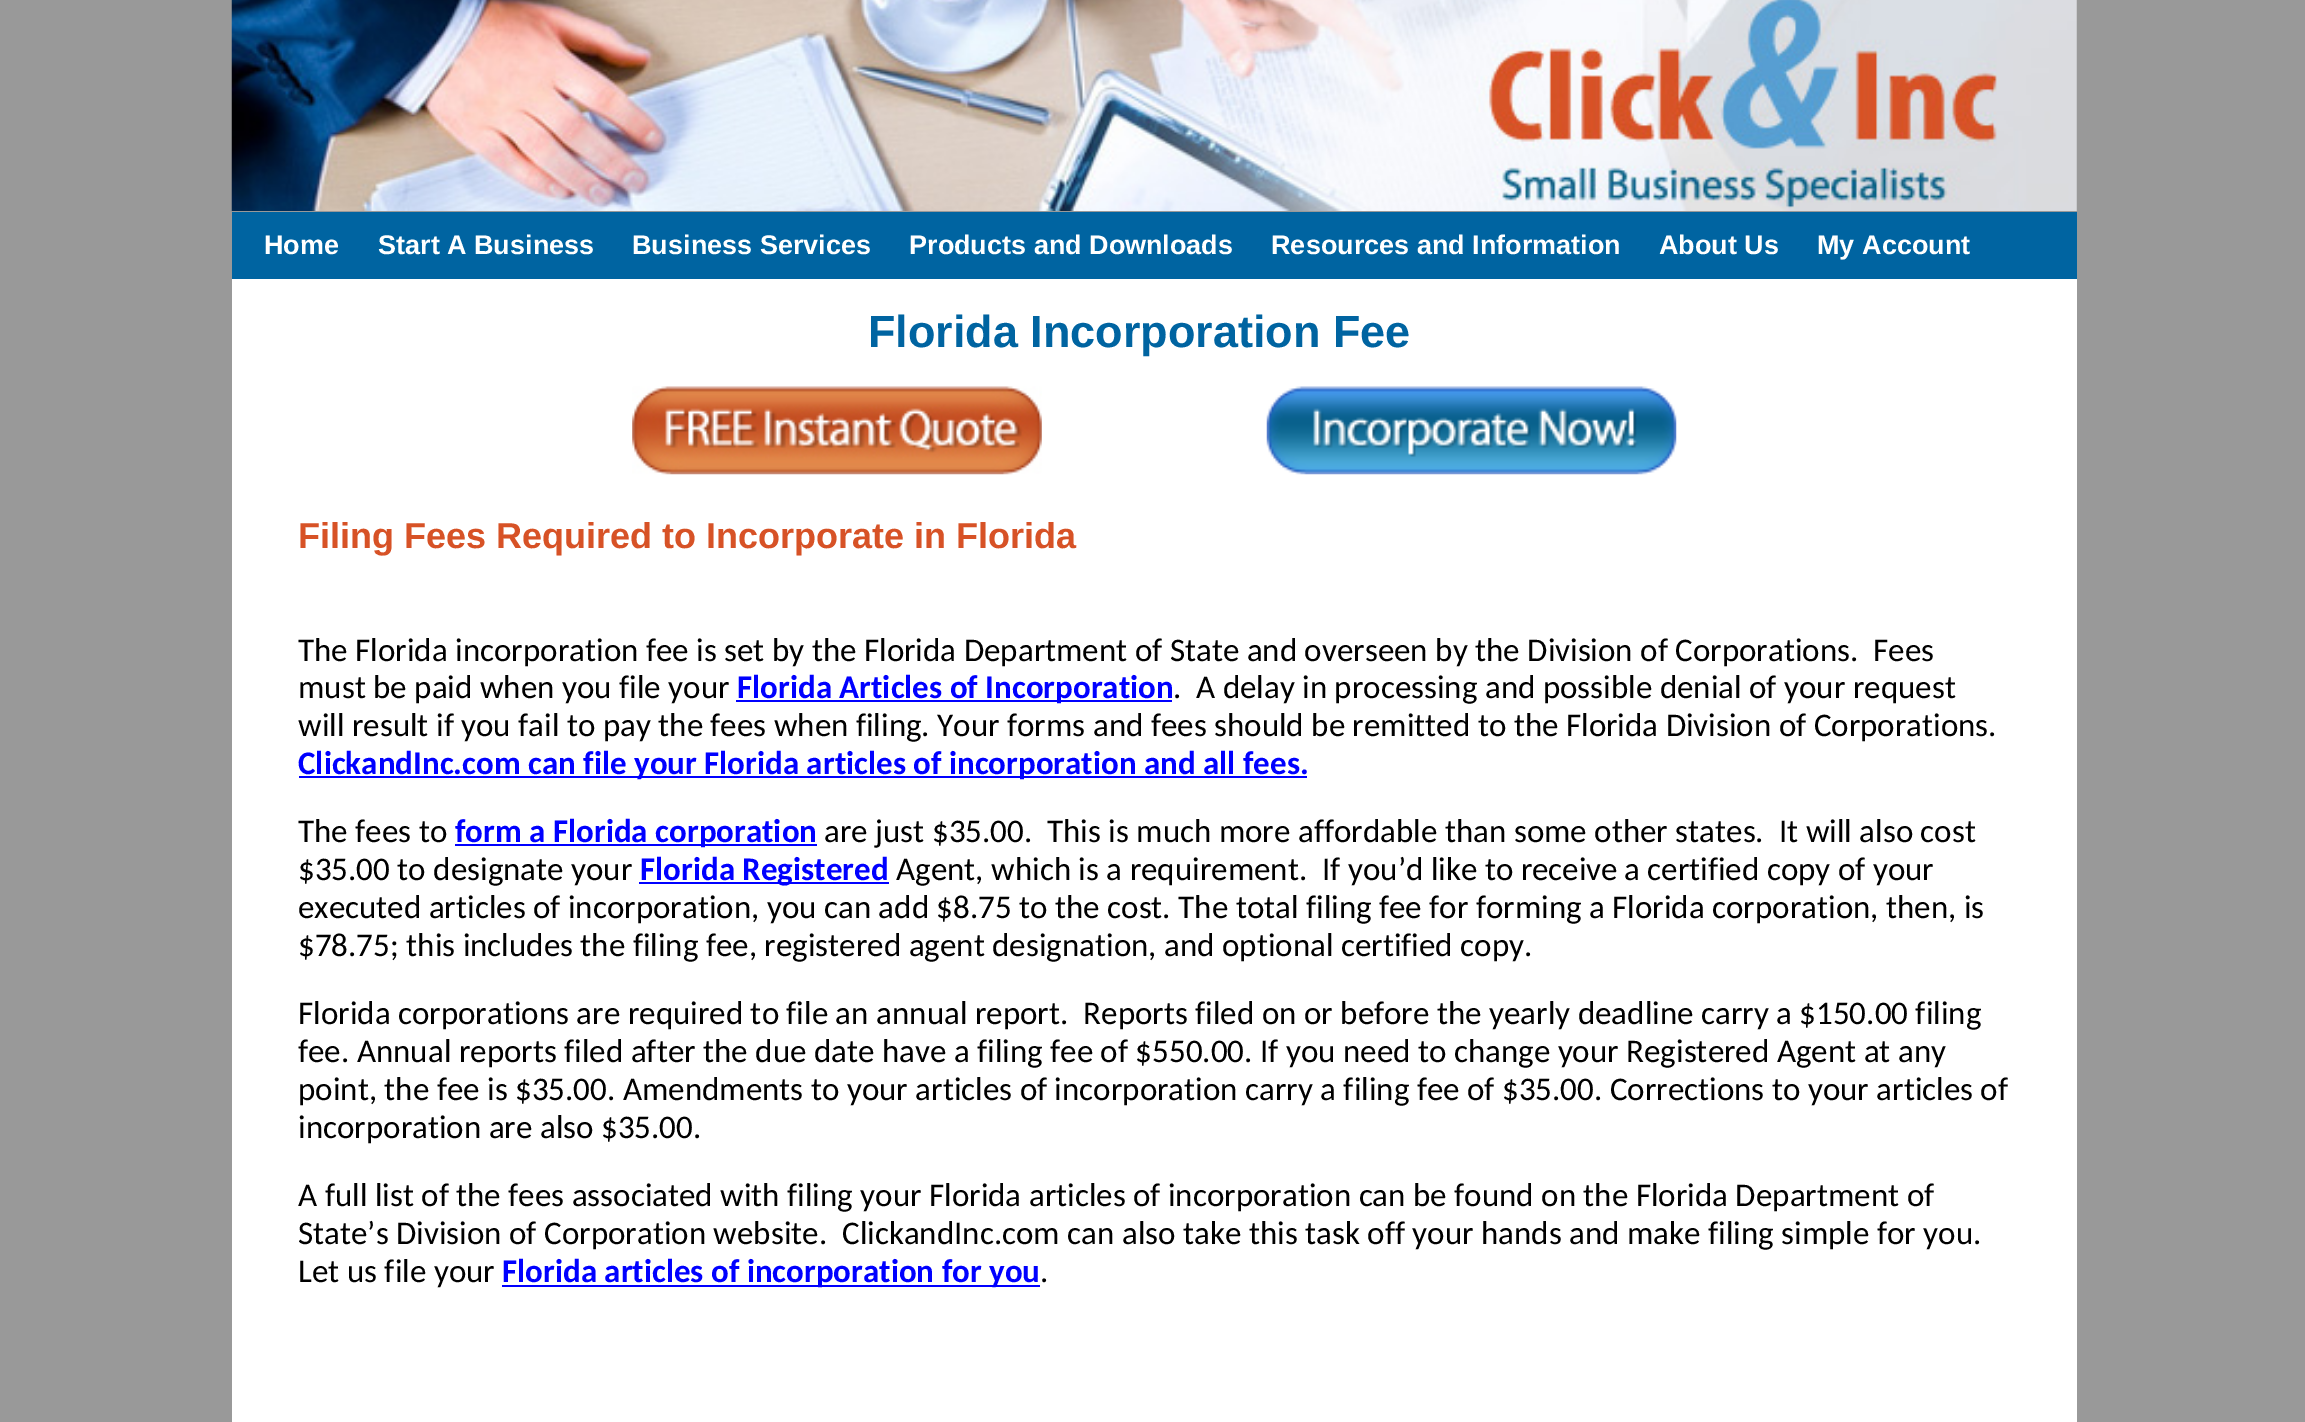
%!PS
<< /PageSize [2305 1422] >> setpagedevice
/rgb { 3 { 255 div 3 1 roll } repeat setrgbcolor } def
/font { [ exch dup neg 0 0 3 -1 roll 0 0 ] selectfont } def
/picture { 5 dict begin { /h /w /y /x /name } { exch def } forall
  gsave x y translate w h scale
  w h 8 [w 0 0 h 0 0] name (r) file false 3 colorimage grestore end } def
0 1422 translate 1 -1 scale
4 setmiterlimit
153 153 153 rgb
0 0 2305 1422 rectfill
255 255 255 rgb
232 279 1845 1143 rectfill
(img/1.rgb) 231 0 1846 211 picture
0 100 161 rgb
232 212 1845 67 rectfill
(img/2.rgb) 632 386 410 89 picture
(img/3.rgb) 1266 386 411 89 picture
[
  [736 700 436 2 0 0 255]
  [299 776 1008 2 0 0 255]
  [455 844 362 2 0 0 255]
  [639 882 250 2 0 0 255]
  [502 1285 538 2 0 0 255]
] { aload pop rgb rectfill } forall
/LiberationSans-Bold 27 font
255 255 255 rgb
[
  [(Home) 264 254]
  [(Start A Business) 378 254]
  [(Business Services) 632 254]
  [(Products and Downloads) 909 254]
  [(Resources and Information) 1271 254]
  [(About Us) 1659 254]
  [(My Account) 1817 254]
] { aload pop moveto show } forall
/LiberationSans-Bold 45 font
0 100 161 rgb
868 347 moveto (Florida Incorporation Fee) show
/LiberationSans-Bold 36 font
215 82 38 rgb
298 548 moveto (Filing Fees Required to Incorporate in Florida) show
/Carlito-Regular 33 font
0 0 0 rgb
[
  [(The Florida incorporation fee is set by the Florida Department of State and overseen by the Division of Corporations.) 298 661]
  [(Fees) 1873 661]
  [(must be paid when you file your) 298 698]
] { aload pop moveto show } forall
/Carlito-Bold 33 font
0 0 255 rgb
737 698 moveto (Florida Articles of Incorporation) show
/Carlito-Regular 33 font
0 0 0 rgb
[
  [(.) 1173 698]
  [(A delay in processing and possible denial of your request) 1196 698]
  [(will result if you fail to pay the fees when filing. Your forms and fees should be remitted to the Florida Division of Corporations.) 298 736]
] { aload pop moveto show } forall
/Carlito-Bold 33 font
0 0 255 rgb
298 774 moveto (ClickandInc.com can file your Florida articles of incorporation and all fees.) show
/Carlito-Regular 33 font
0 0 0 rgb
298 842 moveto (The fees to) show
/Carlito-Bold 33 font
0 0 255 rgb
455 842 moveto (form a Florida corporation) show
/Carlito-Regular 33 font
0 0 0 rgb
824 842 moveto (are just $35.00.  This is much more affordable than some other states.  It will also cost) show
298 880 moveto ($35.00 to designate your) show
/Carlito-Bold 33 font
0 0 255 rgb
640 880 moveto (Florida Registered) show
/Carlito-Regular 33 font
0 0 0 rgb
[
  [(Agent, which is a requirement.  If you’d like to receive) 896 880]
  [(a certified copy of your) 1624 880]
  [(executed articles of incorporation, you can add $8.75 to the cost. The total filing fee for forming a Florida corporation, then, is) 298 918]
  [($78.75; this includes the filing fee, registered agent designation, and optional certified copy.) 298 956]
  [(Florida corporations are required to file an annual report.  Reports filed on or before the yearly deadline carry a $150.00 filing) 298 1024]
  [(fee. Annual reports filed after the due date have a filing fee of $550.00. If you need to change your Registered Agent at any) 298 1062]
  [(point, the fee is $35.00. Amendments to your articles of incorporation carry a filing fee of $35.00. Corrections to your articles of) 298 1100]
  [(incorporation are also $35.00.) 298 1138]
  [(A full list of the fees associated with filing your Florida articles of incorporation can be found on the Florida Department of) 298 1206]
  [(State’s Division of Corporation website.) 298 1244]
  [(ClickandInc.com can also take this task off your hands and make filing simple for you.) 842 1244]
  [(Let us file your) 298 1282]
] { aload pop moveto show } forall
/Carlito-Bold 33 font
0 0 255 rgb
502 1282 moveto (Florida articles of incorporation for you) show
/Carlito-Regular 33 font
0 0 0 rgb
1040 1282 moveto (.) show
showpage
